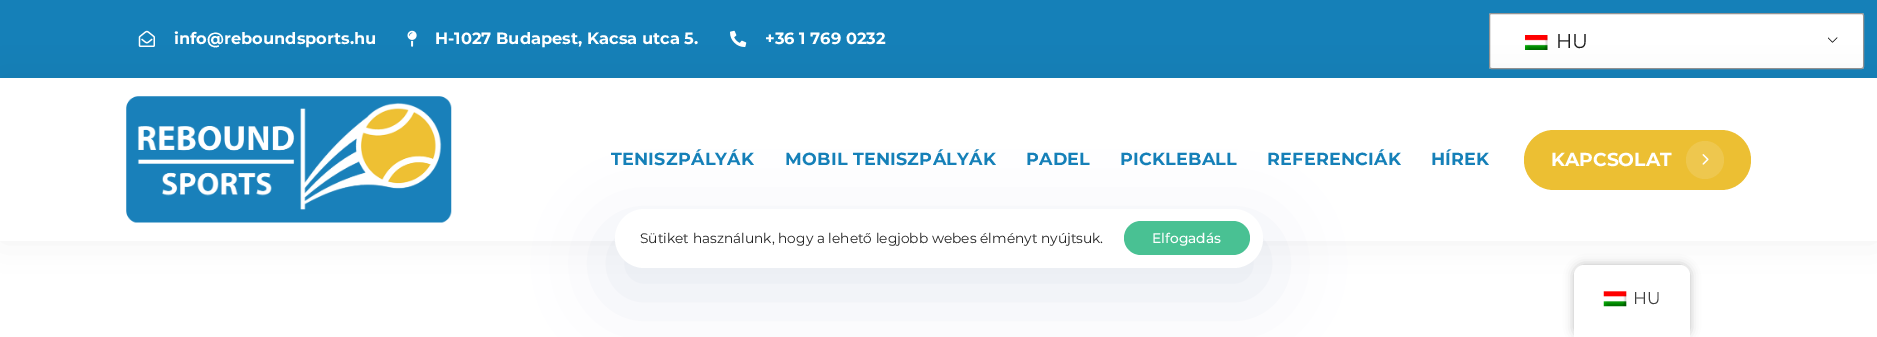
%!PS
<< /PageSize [1877 337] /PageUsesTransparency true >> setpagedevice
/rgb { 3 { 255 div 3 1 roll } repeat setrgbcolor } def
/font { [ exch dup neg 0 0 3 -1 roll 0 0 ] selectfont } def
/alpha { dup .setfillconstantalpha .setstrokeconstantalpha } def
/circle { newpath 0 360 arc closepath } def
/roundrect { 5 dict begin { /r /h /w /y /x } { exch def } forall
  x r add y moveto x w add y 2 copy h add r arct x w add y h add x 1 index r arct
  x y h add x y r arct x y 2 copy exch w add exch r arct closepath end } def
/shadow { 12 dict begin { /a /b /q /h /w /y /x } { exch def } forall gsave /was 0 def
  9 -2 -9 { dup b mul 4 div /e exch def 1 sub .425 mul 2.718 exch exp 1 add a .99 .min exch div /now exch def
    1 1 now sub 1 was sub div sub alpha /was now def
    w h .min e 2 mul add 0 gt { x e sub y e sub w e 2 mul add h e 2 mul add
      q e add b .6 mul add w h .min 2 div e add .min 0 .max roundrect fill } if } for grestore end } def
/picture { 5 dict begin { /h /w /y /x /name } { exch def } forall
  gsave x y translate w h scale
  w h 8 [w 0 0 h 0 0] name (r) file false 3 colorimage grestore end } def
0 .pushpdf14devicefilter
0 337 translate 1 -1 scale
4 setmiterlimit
255 255 255 rgb
0 0 1877 337 rectfill
21 128 184 rgb
0 0 1877 78 rectfill
(img/1.rgb) 138 30 17 17 picture
(img/2.rgb) 407 30 10 17 picture
(img/3.rgb) 730 30 17 17 picture
255 255 255 rgb
1489 13 375 56 2.5 roundrect fill
(img/4.rgb) 1828 37 10 6 picture
148 148 148 rgb
1489.5 13.5 374 55 2 roundrect stroke
(img/5.rgb) 1525 35 23 15 picture
0 0 0 rgb
0 78 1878 163 0 19 0.06 shadow
255 255 255 rgb
0 78 1877 163 rectfill
(img/6.rgb) 126 96 326 127 picture
236 191 51 rgb
1524 130 227 60 30 roundrect fill
238 199 78 rgb
1705 160 19 circle fill
(img/7.rgb) 1702 154 7 11 picture
92 107 149 rgb
615 234 648 59 29.5 37.5 0.15 shadow
255 255 255 rgb
615 209 648 59 29.5 roundrect fill
73 193 147 rgb
1124 221 126 34 17 roundrect fill
0 0 0 rgb
1574 265 116 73 10 5 0.25 shadow
255 255 255 rgb
1584 265 moveto 1680 265 lineto 1685.5 265 1690 269.5 1690 275 curveto 1690 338 lineto 1574 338 lineto 1574 275 lineto 1574 269.5 1578.5 265 1584 265 curveto closepath fill
(img/8.rgb) 1603 291 24 16 picture
/Montserrat-Bold 16.25 font
[
  [(info@reboundsports.hu) 174 44]
  [(H-1027 Budapest, Kacsa utca 5.) 435 44]
  [(+36 1 769 0232) 765 44]
] { aload pop moveto show } forall
/Montserrat-Regular 20 font
30 30 30 rgb
1556 48 moveto (HU) show
/Montserrat-Bold 17.5 font
21 128 184 rgb
611 165 moveto 0.25 0 (TENISZPÁLYÁK) ashow
785 165 moveto 0.25 0 (MOBIL TENISZPÁLYÁK) ashow
1026 165 moveto 0.25 0 (PADEL) ashow
1120 165 moveto 0.25 0 (PICKLEBALL) ashow
1267 165 moveto 0.25 0 (REFERENCIÁK) ashow
1431 165 moveto 0.25 0 (HÍREK) ashow
/Montserrat-Bold 18.75 font
255 255 255 rgb
1551 166 moveto (KAPCSOLAT) show
/Montserrat-Regular 13.75 font
36 36 36 rgb
640 243 moveto (Sütiket használunk, hogy a lehető legjobb webes élményt nyújtsuk.) show
/Montserrat-Medium 13.75 font
255 255 255 rgb
1152 243 moveto (Elfogadás) show
/Montserrat-Regular 17 font
64 64 64 rgb
1633 304 moveto (HU) show
.poppdf14devicefilter showpage
